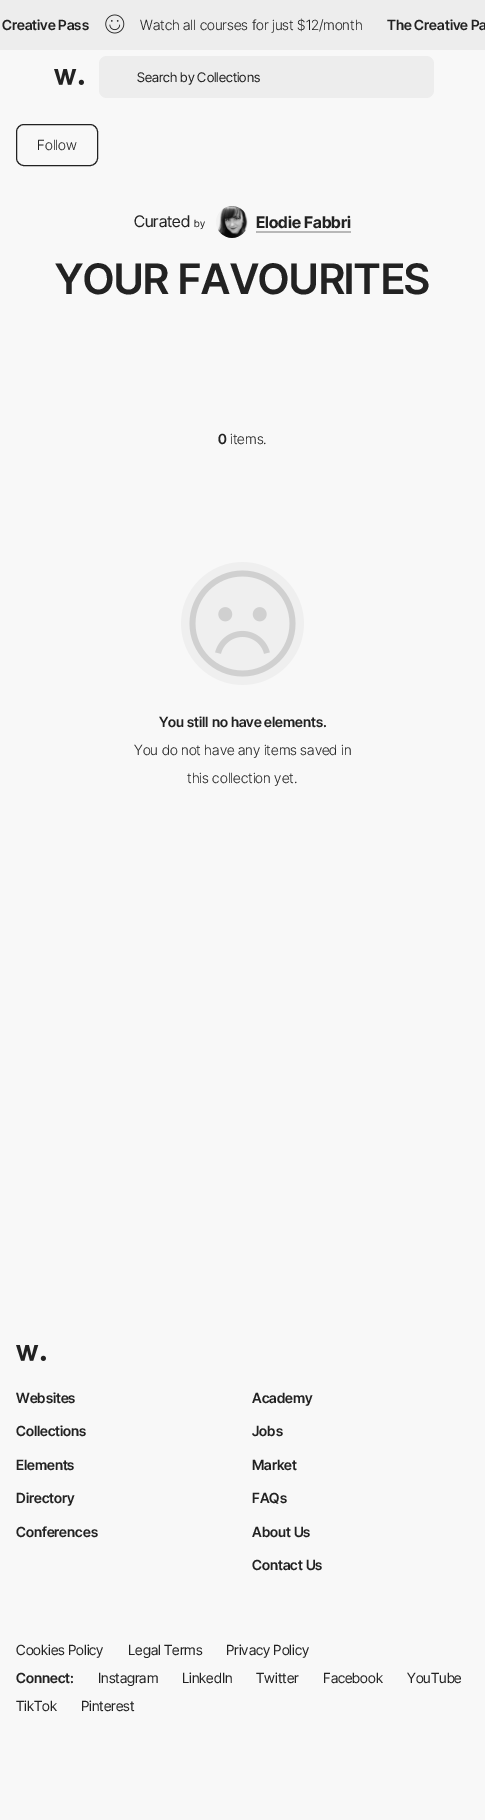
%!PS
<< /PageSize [485 1820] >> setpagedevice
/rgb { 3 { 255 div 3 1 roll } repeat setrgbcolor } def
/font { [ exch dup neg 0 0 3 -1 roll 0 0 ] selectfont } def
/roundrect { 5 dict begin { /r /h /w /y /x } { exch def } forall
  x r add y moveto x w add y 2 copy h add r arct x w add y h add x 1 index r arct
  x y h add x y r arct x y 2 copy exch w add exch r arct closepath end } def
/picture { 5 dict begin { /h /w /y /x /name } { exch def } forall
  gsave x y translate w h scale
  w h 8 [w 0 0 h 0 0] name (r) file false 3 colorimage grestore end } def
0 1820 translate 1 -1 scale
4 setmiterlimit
248 248 248 rgb
0 0 485 1820 rectfill
237 237 237 rgb
0 0 485 50 rectfill
(img/1.rgb) 105 14 20 20 picture
(img/2.rgb) 54 69 30 16 picture
99 56 335 42 8 roundrect fill
34 34 34 rgb
16.5 124.5 81 41 7.5 roundrect stroke
(img/3.rgb) 216 206 32 32 picture
gsave 256 231 moveto 351 231 lineto 351 233 lineto 256 233 lineto closepath clip newpath
<< /ShadingType 2 /ColorSpace /DeviceRGB /Coords [142 232 351 232] /Extend [true true] /Function << /FunctionType 3 /Domain [0 1] /Functions [<< /FunctionType 2 /Domain [0 1] /C0 [0.133 0.133 0.133] /C1 [0.133 0.133 0.133] /N 1 >> << /FunctionType 2 /Domain [0 1] /C0 [0.133 0.133 0.133] /C1 [0.722 0.722 0.722] /N 1 >> << /FunctionType 2 /Domain [0 1] /C0 [0.722 0.722 0.722] /C1 [0.722 0.722 0.722] /N 1 >>] /Bounds [0.45 0.55] /Encode [0 1 0 1 0 1] >> >> shfill grestore
(img/4.rgb) 181 562 123 123 picture
(img/2.rgb) 16 1345 30 16 picture
/InterTight-SemiBold 14 font
2 30 moveto (Creative Pass) show
/InterTight-Light 14 font
140 30 moveto (Watch all courses for just $12/month) show
/InterTight-SemiBold 14 font
387 30 moveto (The Creative Pa) show
/InterTight-Regular 13.25 font
137 82 moveto (Search by Collections) show
/InterTight-Light 14 font
37 150 moveto (Follow) show
/InterTight-Regular 16 font
134 227 moveto (Curated) show
/InterTight-Regular 10 font
194 227 moveto (by) show
/InterTight-Bold 16 font
256 228 moveto (Elodie Fabbri) show
/InterTight-SemiBold 42 font
55 294 moveto (YOUR FAVOURITES) show
/InterTight-SemiBold 14 font
218 444 moveto (0) show
/InterTight-Light 14 font
230 444 moveto (items.) show
/InterTight-SemiBold 14 font
159 727 moveto (You still no have elements.) show
/InterTight-Light 14 font
134 755 moveto (You do not have any items saved in) show
187 783 moveto (this collection yet.) show
/InterTight-SemiBold 14 font
[
  [(Websites) 16 1403]
  [(Collections) 16 1436]
  [(Elements) 16 1470]
  [(Academy) 252 1403]
  [(Jobs) 252 1436]
  [(Market) 252 1470]
  [(Directory) 16 1503]
  [(Conferences) 16 1537]
  [(FAQs) 252 1503]
  [(About Us) 252 1537]
  [(Contact Us) 252 1570]
] { aload pop moveto show } forall
/InterTight-Regular 14 font
[
  [(Cookies Policy) 16 1655]
  [(Legal Terms) 128 1655]
  [(Privacy Policy) 226 1655]
] { aload pop moveto show } forall
/InterTight-SemiBold 14 font
16 1683 moveto (Connect:) show
/InterTight-Regular 14 font
[
  [(Instagram) 98 1683]
  [(LinkedIn) 182 1683]
  [(Twitter) 256 1683]
  [(Facebook) 323 1683]
  [(YouTube) 407 1683]
  [(TikTok) 16 1711]
  [(Pinterest) 81 1711]
] { aload pop moveto show } forall
showpage
